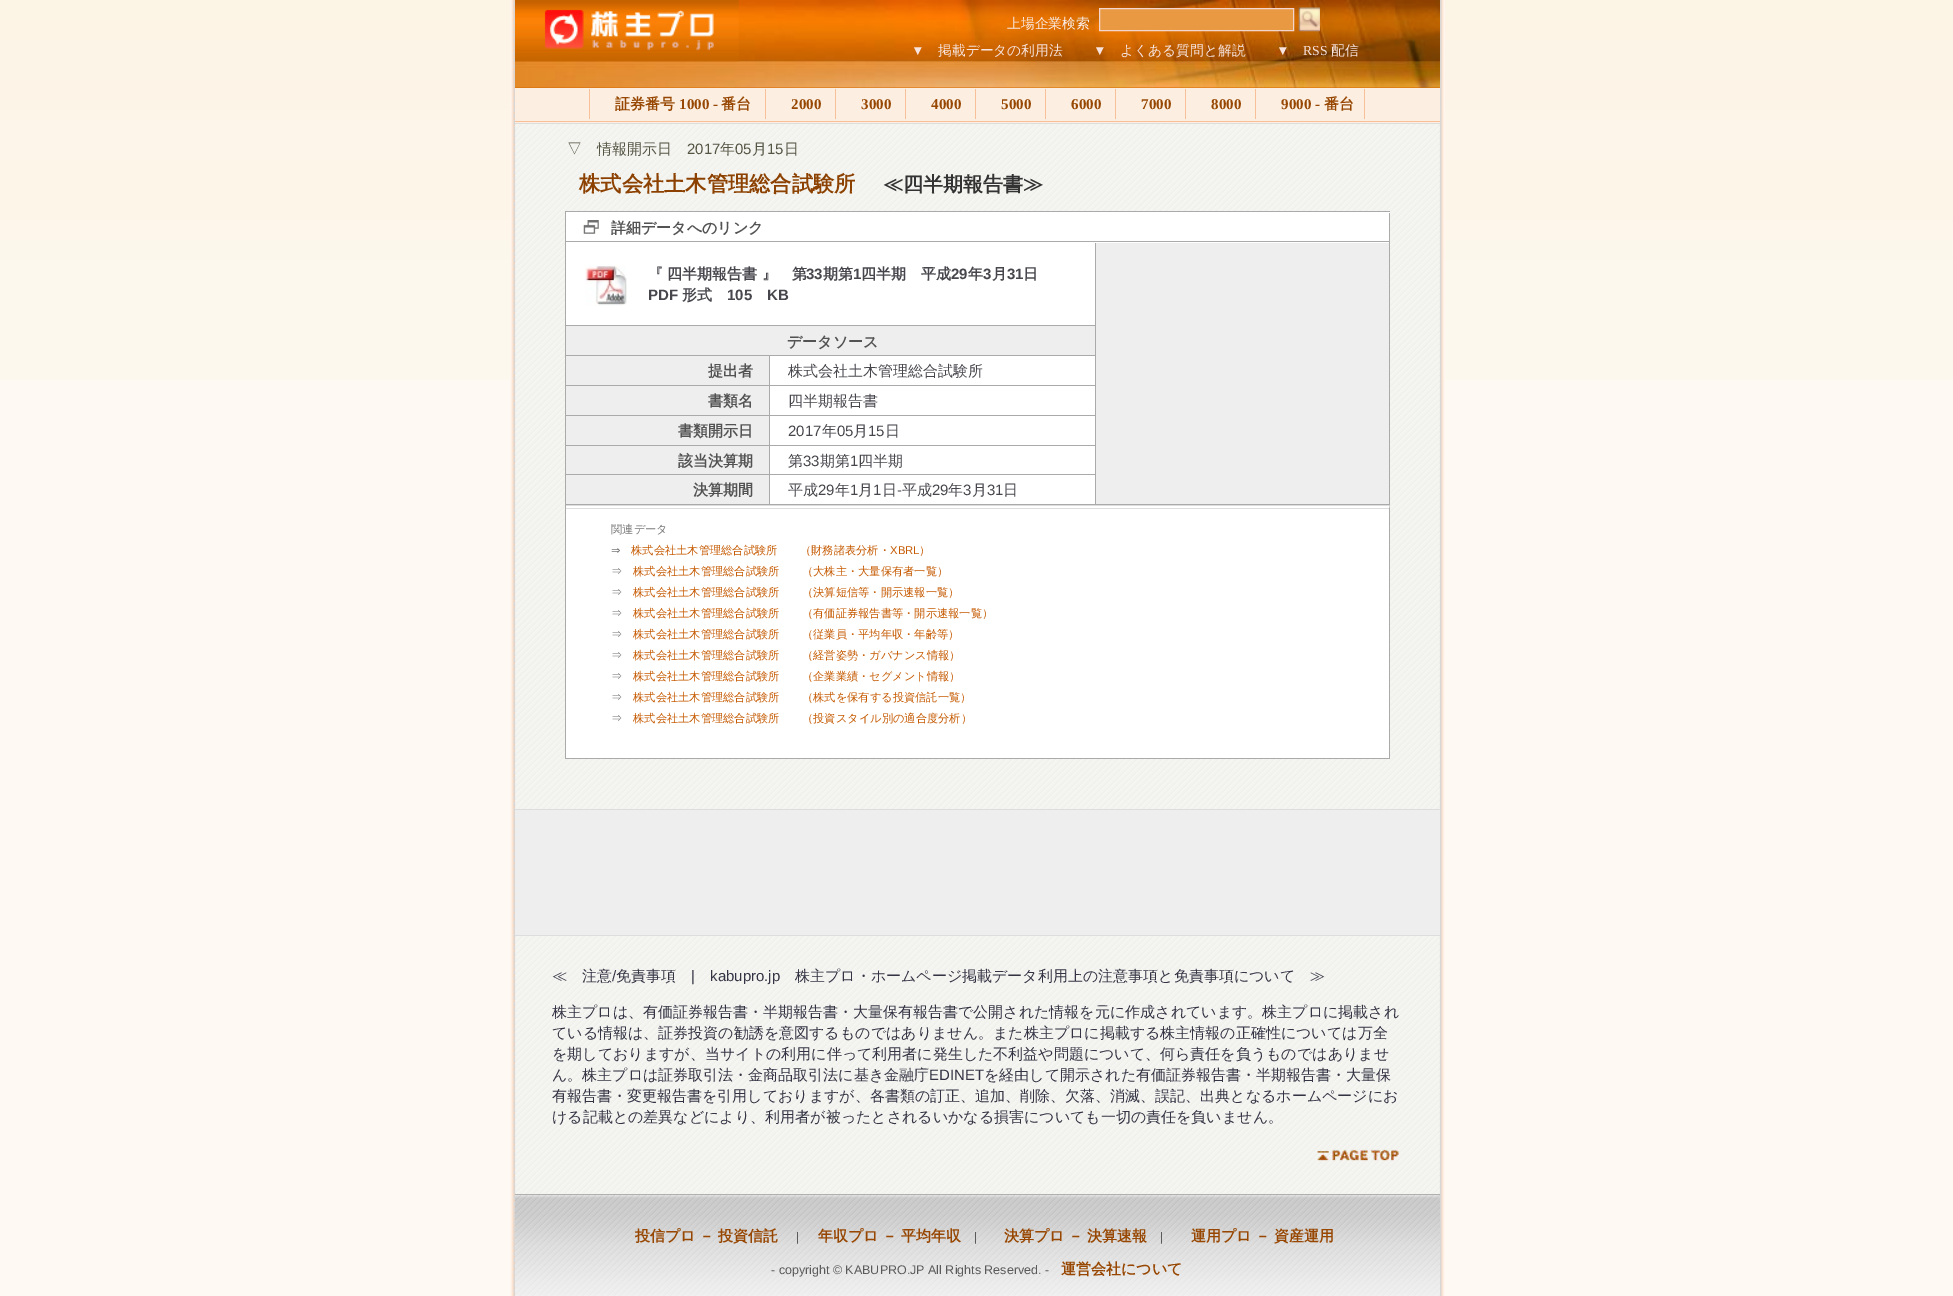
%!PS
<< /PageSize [1953 1296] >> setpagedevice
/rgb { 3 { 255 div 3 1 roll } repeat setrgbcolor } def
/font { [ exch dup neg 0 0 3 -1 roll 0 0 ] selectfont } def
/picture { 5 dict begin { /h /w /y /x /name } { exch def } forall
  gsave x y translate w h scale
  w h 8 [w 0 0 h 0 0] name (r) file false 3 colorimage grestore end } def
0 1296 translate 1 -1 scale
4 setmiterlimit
254 249 243 rgb
0 0 1953 1296 rectfill
(img/1.rgb) 0 0 1953 380 picture
(img/2.rgb) 510 0 935 1296 picture
214 105 0 rgb
515 87 925 1 rectfill
(img/3.rgb) 515 0 925 88 picture
(img/4.rgb) 515 0 224 62 picture
233 153 65 rgb
1099.5 8.5 moveto 1293.5 8.5 lineto 1293.5 30.5 lineto 1099.5 30.5 lineto closepath gsave fill grestore
242 213 206 rgb
stroke
(img/5.rgb) 1298 7 22 25 picture
[
  [515 88 925 35 252 239 226]
  [515 121 925 1 247 192 153]
  [589 89 1 30 247 192 153]
  [765 89 1 30 247 192 153]
  [835 89 1 30 247 192 153]
  [905 89 1 30 247 192 153]
  [975 89 1 30 247 192 153]
  [1045 89 1 30 247 192 153]
  [1115 89 1 30 247 192 153]
  [1185 89 1 30 247 192 153]
  [1255 89 1 30 247 192 153]
  [1364 89 1 30 247 192 153]
  [515 123 925 1 221 221 221]
  [566 212 824 546 255 255 255]
  [565 211 825 1 170 170 170]
  [565 211 1 548 170 170 170]
] { aload pop rgb rectfill } forall
(img/6.rgb) 583 220 16 14 picture
[
  [1389 213 1 292 170 170 170]
  [566 241 824 1 170 170 170]
  [1095 243 1 262 170 170 170]
  [566 325 530 1 170 170 170]
] { aload pop rgb rectfill } forall
(img/7.rgb) 585 265 42 41 picture
[
  [1096 243 293 261 238 238 238]
  [1096 504 294 1 170 170 170]
  [566 326 529 29 238 238 238]
  [566 355 530 1 170 170 170]
  [566 356 203 29 238 238 238]
  [769 356 1 149 170 170 170]
  [566 385 530 1 170 170 170]
  [566 386 203 29 238 238 238]
  [566 415 530 1 170 170 170]
  [566 416 203 29 238 238 238]
  [566 445 530 1 170 170 170]
  [566 446 203 28 238 238 238]
  [566 474 530 1 170 170 170]
  [566 475 203 29 238 238 238]
  [566 504 530 1 170 170 170]
  [566 505 824 1 221 221 221]
  [566 508 824 1 221 221 221]
] { aload pop rgb rectfill } forall
170 170 170 rgb
1390 505 moveto 1390 759 lineto 1389 758 lineto 1389 509 lineto closepath fill
[
  [566 758 824 1 170 170 170]
  [515 810 925 125 238 238 238]
  [515 809 925 1 221 221 221]
  [515 935 925 1 221 221 221]
] { aload pop rgb rectfill } forall
(img/8.rgb) 1316 1149 83 12 picture
(img/9.rgb) 515 1195 925 101 picture
176 176 176 rgb
515 1194 925 1 rectfill
/WenQuanYiZenHei-Medium 13.75 font
250 237 235 rgb
1007 28 moveto (上場企業検索) show
/LiberationSerif-Regular 13.75 font
247 227 223 rgb
911 55 moveto (▼) show
/WenQuanYiZenHei-Medium 13.75 font
938 55 moveto (掲載データの利用法) show
/LiberationSerif-Regular 13.75 font
1093 55 moveto (▼) show
/WenQuanYiZenHei-Medium 13.75 font
1120 55 moveto (よくある質問と解説) show
/LiberationSerif-Regular 13.75 font
1276 55 moveto (▼) show
1303 55 moveto (RSS) show
/WenQuanYiZenHei-Medium 13.75 font
1331 55 moveto (配信) show
/WenQuanYiZenHei-Bold 15 font
151 71 2 rgb
615 109 moveto (証券番号) show
/LiberationSerif-Bold 15 font
679 109 moveto (1000 -) show
/WenQuanYiZenHei-Bold 15 font
721 109 moveto (番台) show
/LiberationSerif-Bold 15 font
[
  [(2000) 791 109]
  [(3000) 861 109]
  [(4000) 931 109]
  [(5000) 1001 109]
  [(6000) 1071 109]
  [(7000) 1141 109]
  [(8000) 1211 109]
  [(9000 -) 1281 109]
] { aload pop moveto show } forall
/WenQuanYiZenHei-Bold 15 font
1324 109 moveto (番台) show
/WenQuanYiZenHei-Medium 15 font
85 85 68 rgb
567 154 moveto (▽　情報開示日) show
/LiberationSans-Regular 15 font
687 154 moveto (2017) show
/WenQuanYiZenHei-Medium 15 font
720 154 moveto (年) show
/LiberationSans-Regular 15 font
735 154 moveto (05) show
/WenQuanYiZenHei-Medium 15 font
752 154 moveto (月) show
/LiberationSans-Regular 15 font
767 154 moveto (15) show
/WenQuanYiZenHei-Medium 15 font
784 154 moveto (日) show
/WenQuanYiZenHei-Bold 21.25 font
140 65 0 rgb
579 191 moveto (株式会社土木管理総合試験所) show
/WenQuanYiZenHei-Bold 20 font
51 51 51 rgb
883 191 moveto (≪四半期報告書≫) show
/WenQuanYiZenHei-Bold 15 font
83 83 83 rgb
611 233 moveto (詳細データへのリンク) show
70 70 76 rgb
648 279 moveto (『 四半期報告書 』　第) show
/LiberationSans-Bold 15 font
806 279 moveto (33) show
/WenQuanYiZenHei-Bold 15 font
823 279 moveto (期第) show
/LiberationSans-Bold 15 font
853 279 moveto (1) show
/WenQuanYiZenHei-Bold 15 font
861 279 moveto (四半期　平成) show
/LiberationSans-Bold 15 font
951 279 moveto (29) show
/WenQuanYiZenHei-Bold 15 font
968 279 moveto (年) show
/LiberationSans-Bold 15 font
983 279 moveto (3) show
/WenQuanYiZenHei-Bold 15 font
992 279 moveto (月) show
/LiberationSans-Bold 15 font
1007 279 moveto (31) show
/WenQuanYiZenHei-Bold 15 font
1023 279 moveto (日) show
/LiberationSans-Bold 15 font
648 300 moveto (PDF) show
/WenQuanYiZenHei-Bold 15 font
682 300 moveto (形式) show
/LiberationSans-Bold 15 font
727 300 moveto (105) show
767 300 moveto (KB) show
/WenQuanYiZenHei-Bold 15 font
83 83 83 rgb
787 347 moveto (データソース) show
708 376 moveto (提出者) show
/WenQuanYiZenHei-Medium 15 font
70 70 76 rgb
788 376 moveto (株式会社土木管理総合試験所) show
/WenQuanYiZenHei-Bold 15 font
83 83 83 rgb
708 406 moveto (書類名) show
/WenQuanYiZenHei-Medium 15 font
70 70 76 rgb
788 406 moveto (四半期報告書) show
/WenQuanYiZenHei-Bold 15 font
83 83 83 rgb
678 436 moveto (書類開示日) show
/LiberationSans-Regular 15 font
70 70 76 rgb
788 436 moveto (2017) show
/WenQuanYiZenHei-Medium 15 font
822 436 moveto (年) show
/LiberationSans-Regular 15 font
837 436 moveto (05) show
/WenQuanYiZenHei-Medium 15 font
853 436 moveto (月) show
/LiberationSans-Regular 15 font
868 436 moveto (15) show
/WenQuanYiZenHei-Medium 15 font
885 436 moveto (日) show
/WenQuanYiZenHei-Bold 15 font
83 83 83 rgb
678 466 moveto (該当決算期) show
/WenQuanYiZenHei-Medium 15 font
70 70 76 rgb
788 466 moveto (第) show
/LiberationSans-Regular 15 font
803 466 moveto (33) show
/WenQuanYiZenHei-Medium 15 font
820 466 moveto (期第) show
/LiberationSans-Regular 15 font
850 466 moveto (1) show
/WenQuanYiZenHei-Medium 15 font
858 466 moveto (四半期) show
/WenQuanYiZenHei-Bold 15 font
83 83 83 rgb
693 495 moveto (決算期間) show
/WenQuanYiZenHei-Medium 15 font
70 70 76 rgb
788 495 moveto (平成) show
/LiberationSans-Regular 15 font
818 495 moveto (29) show
/WenQuanYiZenHei-Medium 15 font
835 495 moveto (年) show
/LiberationSans-Regular 15 font
850 495 moveto (1) show
/WenQuanYiZenHei-Medium 15 font
858 495 moveto (月) show
/LiberationSans-Regular 15 font
873 495 moveto (1) show
/WenQuanYiZenHei-Medium 15 font
882 495 moveto (日) show
/LiberationSans-Regular 15 font
897 495 moveto (-) show
/WenQuanYiZenHei-Medium 15 font
902 495 moveto (平成) show
/LiberationSans-Regular 15 font
932 495 moveto (29) show
/WenQuanYiZenHei-Medium 15 font
948 495 moveto (年) show
/LiberationSans-Regular 15 font
963 495 moveto (3) show
/WenQuanYiZenHei-Medium 15 font
972 495 moveto (月) show
/LiberationSans-Regular 15 font
987 495 moveto (31) show
/WenQuanYiZenHei-Medium 15 font
1003 495 moveto (日) show
/WenQuanYiZenHei-Medium 11.25 font
119 119 119 rgb
611 533 moveto (関連データ) show
/DejaVuSans-Regular 11.25 font
611 554 moveto (⇒) show
/WenQuanYiZenHei-Medium 11.25 font
198 89 0 rgb
631 554 moveto (株式会社土木管理総合試験所　　（財務諸表分析・) show
/LiberationSans-Regular 11.25 font
890 554 moveto (XBRL) show
/WenQuanYiZenHei-Medium 11.25 font
919 554 moveto (）) show
119 119 119 rgb
611 575 moveto (⇒) show
198 89 0 rgb
633 575 moveto (株式会社土木管理総合試験所　　（大株主・大量保有者一覧）) show
119 119 119 rgb
611 596 moveto (⇒) show
198 89 0 rgb
633 596 moveto (株式会社土木管理総合試験所　　（決算短信等・開示速報一覧）) show
119 119 119 rgb
611 617 moveto (⇒) show
198 89 0 rgb
633 617 moveto (株式会社土木管理総合試験所　　（有価証券報告書等・開示速報一覧）) show
119 119 119 rgb
611 638 moveto (⇒) show
198 89 0 rgb
633 638 moveto (株式会社土木管理総合試験所　　（従業員・平均年収・年齢等）) show
119 119 119 rgb
611 659 moveto (⇒) show
198 89 0 rgb
633 659 moveto (株式会社土木管理総合試験所　　（経営姿勢・ガバナンス情報）) show
119 119 119 rgb
611 680 moveto (⇒) show
198 89 0 rgb
633 680 moveto (株式会社土木管理総合試験所　　（企業業績・セグメント情報）) show
119 119 119 rgb
611 701 moveto (⇒) show
198 89 0 rgb
633 701 moveto (株式会社土木管理総合試験所　　（株式を保有する投資信託一覧）) show
119 119 119 rgb
611 722 moveto (⇒) show
198 89 0 rgb
633 722 moveto (株式会社土木管理総合試験所　　（投資スタイル別の適合度分析）) show
/WenQuanYiZenHei-Medium 15 font
51 51 68 rgb
552 981 moveto (≪　注意) show
/LiberationSans-Regular 15 font
612 981 moveto (/) show
/WenQuanYiZenHei-Medium 15 font
616 981 moveto (免責事項) show
/LiberationSans-Regular 15 font
691 981 moveto (|) show
710 981 moveto (kabupro.jp) show
/WenQuanYiZenHei-Medium 15 font
[
  [(株主プロ・ホームページ掲載データ利用上の注意事項と免責事項について　≫) 795 981]
  [(株主プロは、有価証券報告書・半期報告書・大量保有報告書で公開された情報を元に作成されています。株主プロに掲載され) 552 1017]
  [(ている情報は、証券投資の勧誘を意図するものではありません。また株主プロに掲載する株主情報の正確性については万全) 552 1038]
  [(を期しておりますが、当サイトの利用に伴って利用者に発生した不利益や問題について、何ら責任を負うものではありませ) 552 1059]
  [(ん。株主プロは証券取引法・金商品取引法に基き金融庁) 552 1080]
] { aload pop moveto show } forall
/LiberationSans-Regular 15 font
929 1080 moveto (EDINET) show
/WenQuanYiZenHei-Medium 15 font
[
  [(を経由して開示された有価証券報告書・半期報告書・大量保) 984 1080]
  [(有報告書・変更報告書を引用しておりますが、各書類の訂正、追加、削除、欠落、消滅、誤記、出典となるホームページにお) 552 1101]
  [(ける記載との差異などにより、利用者が被ったとされるいかなる損害についても一切の責任を負いません。) 552 1122]
] { aload pop moveto show } forall
/WenQuanYiZenHei-Bold 15 font
151 71 2 rgb
635 1241 moveto -1 0 32 (投信プロ － 投資信託) widthshow
/LiberationSans-Regular 12.5 font
90 90 90 rgb
796 1241 moveto (|) show
/WenQuanYiZenHei-Bold 15 font
151 71 2 rgb
818 1241 moveto -1 0 32 (年収プロ － 平均年収) widthshow
/LiberationSans-Regular 12.5 font
90 90 90 rgb
974 1241 moveto (|) show
/WenQuanYiZenHei-Bold 15 font
151 71 2 rgb
1004 1241 moveto -1 0 32 (決算プロ － 決算速報) widthshow
/LiberationSans-Regular 12.5 font
90 90 90 rgb
1160 1241 moveto (|) show
/WenQuanYiZenHei-Bold 15 font
151 71 2 rgb
1191 1241 moveto -1 0 32 (運用プロ － 資産運用) widthshow
/LiberationSans-Regular 12.5 font
90 90 90 rgb
771 1274 moveto (- copyright © KABUPRO.JP All Rights Reserved. -) show
/WenQuanYiZenHei-Bold 15 font
151 71 2 rgb
1061 1274 moveto (運営会社について) show
showpage
